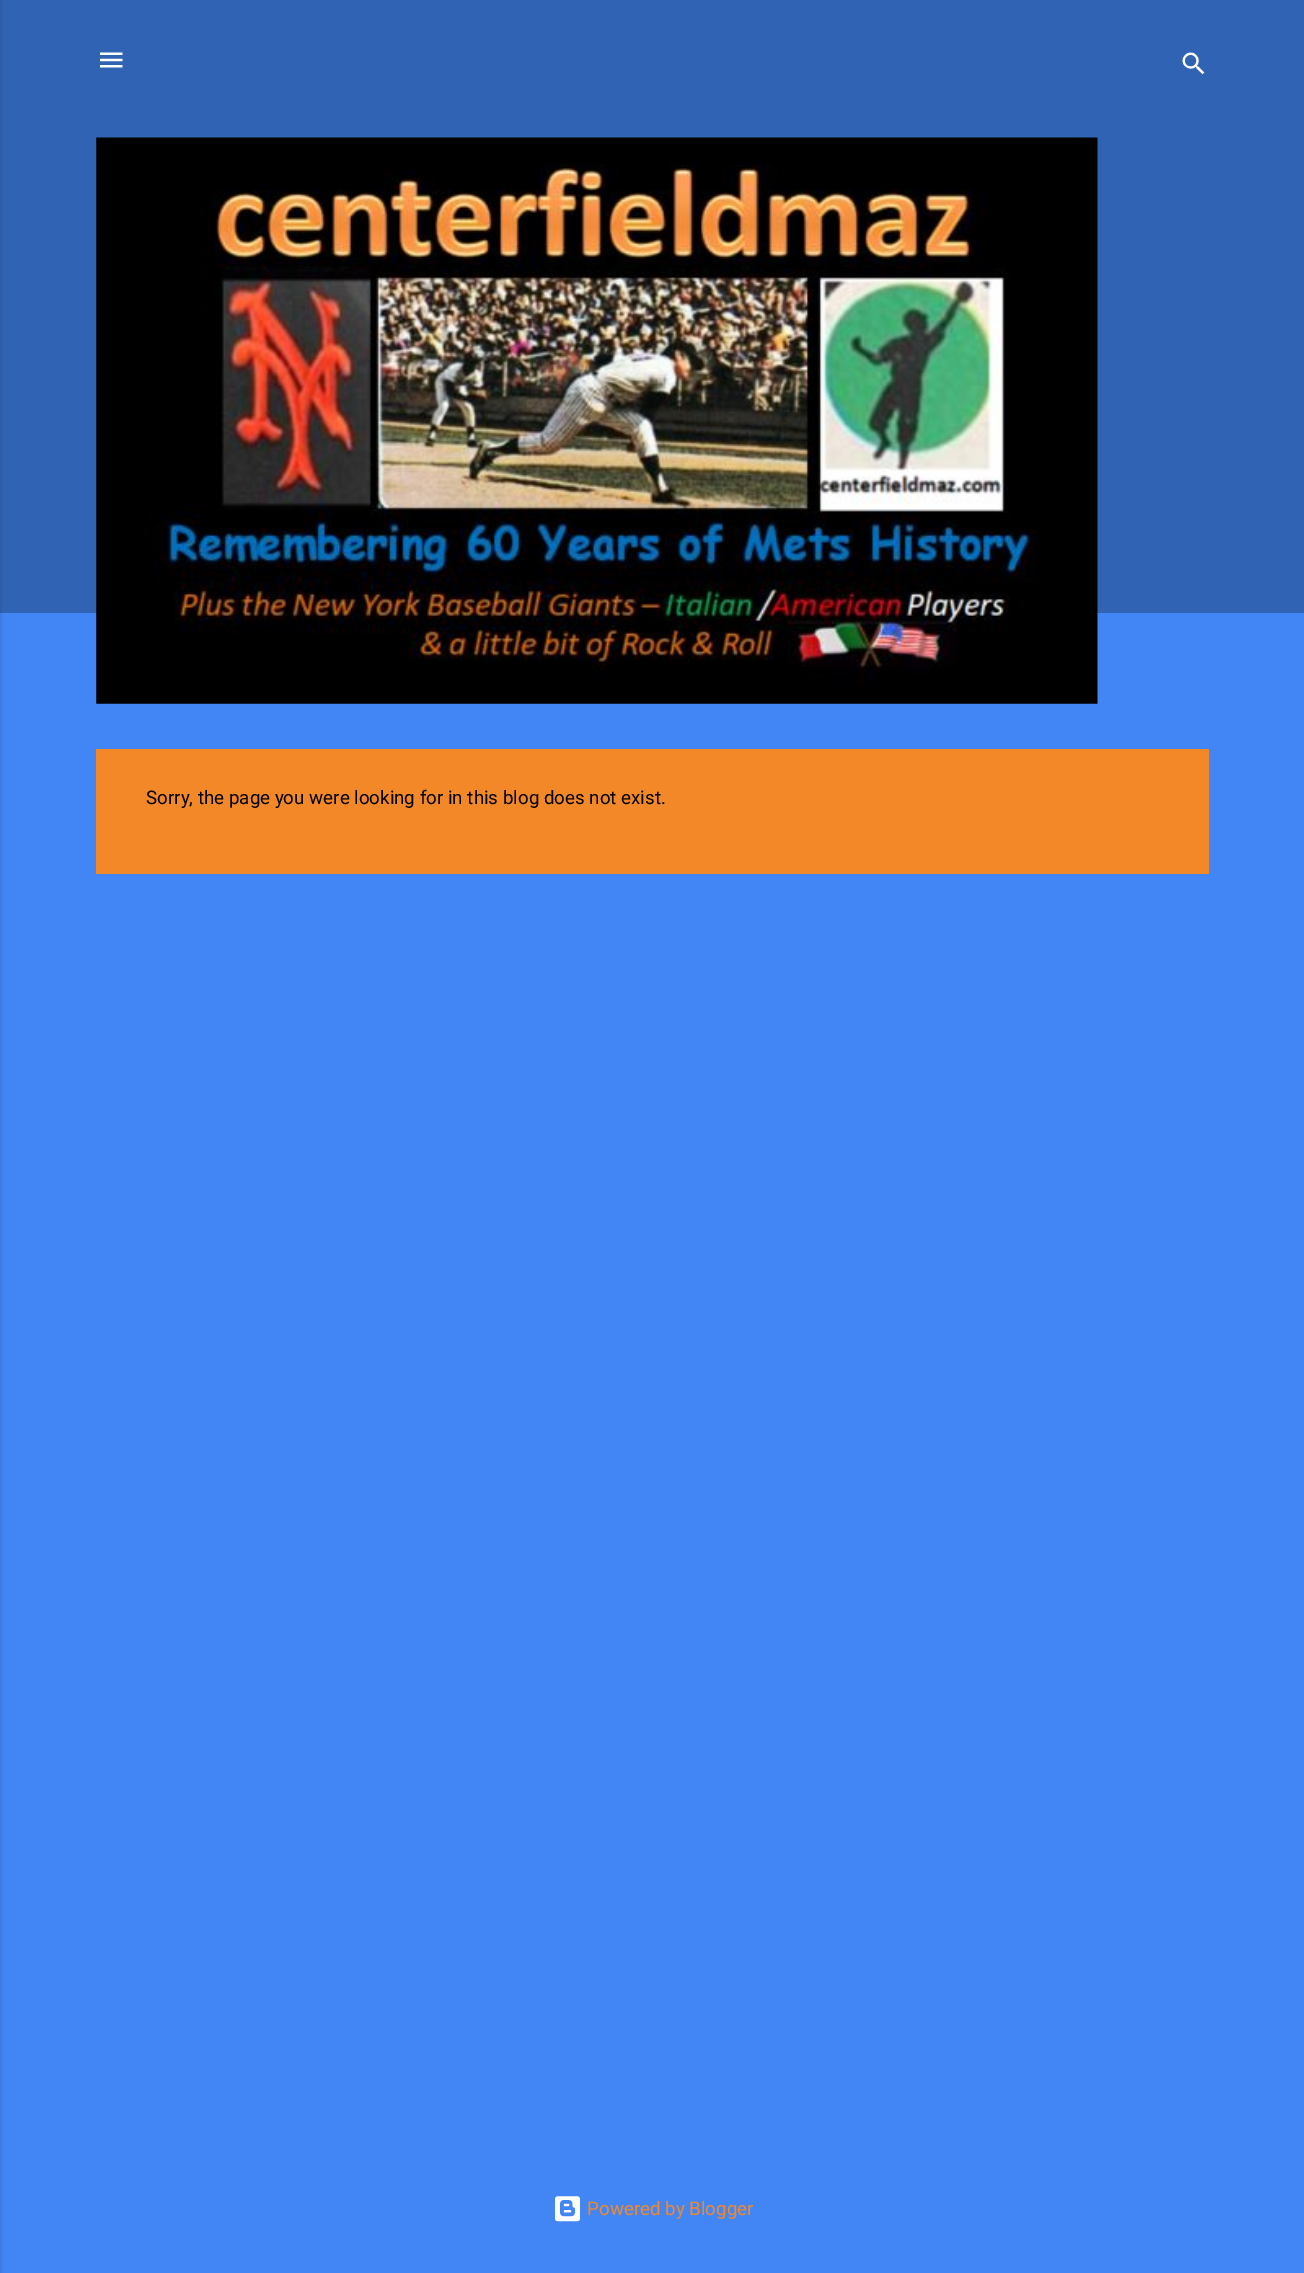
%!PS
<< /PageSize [1304 2273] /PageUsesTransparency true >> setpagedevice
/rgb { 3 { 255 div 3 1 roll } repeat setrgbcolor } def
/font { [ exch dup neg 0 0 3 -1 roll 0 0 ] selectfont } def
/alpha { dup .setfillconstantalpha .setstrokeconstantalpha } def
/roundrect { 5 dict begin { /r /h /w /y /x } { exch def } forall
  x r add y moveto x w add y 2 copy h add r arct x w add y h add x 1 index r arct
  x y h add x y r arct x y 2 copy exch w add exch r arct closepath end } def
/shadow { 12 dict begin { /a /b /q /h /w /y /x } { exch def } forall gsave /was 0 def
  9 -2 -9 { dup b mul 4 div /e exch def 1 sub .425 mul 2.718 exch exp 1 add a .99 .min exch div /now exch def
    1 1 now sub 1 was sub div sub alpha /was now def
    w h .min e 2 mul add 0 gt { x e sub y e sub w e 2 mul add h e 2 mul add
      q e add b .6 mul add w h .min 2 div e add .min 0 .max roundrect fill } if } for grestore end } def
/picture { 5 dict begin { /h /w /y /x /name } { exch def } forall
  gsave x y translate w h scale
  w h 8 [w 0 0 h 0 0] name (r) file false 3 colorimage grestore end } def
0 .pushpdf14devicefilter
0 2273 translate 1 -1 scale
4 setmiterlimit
66 133 244 rgb
0 0 1304 2273 rectfill
48 99 179 rgb
0 0 1304 613 rectfill
0 0 0 rgb
-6 1 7 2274 0 2 0.1 shadow
(img/1.rgb) 100 52 23 16 picture
(img/2.rgb) 1182 52 23 23 picture
(img/3.rgb) 96 137 1002 567 picture
243 136 40 rgb
96 749 1113 125 rectfill
(img/4.rgb) 555 2196 25 26 picture
/Roboto-Regular 18.75 font
0 0 0 rgb
146 804 moveto (Sorry, the page you were looking for in this blog does not exist.) show
243 136 40 rgb
587 2215 moveto (Powered by Blogger) show
.poppdf14devicefilter showpage
